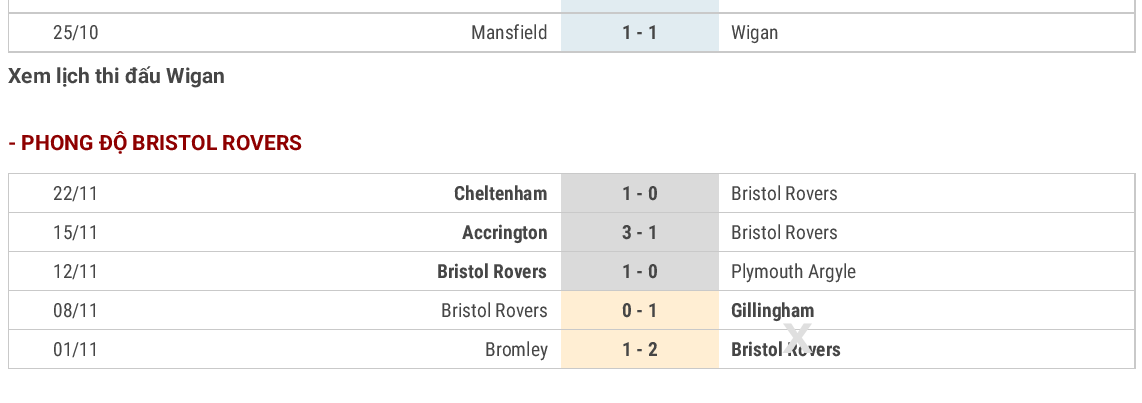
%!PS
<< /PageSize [1142 403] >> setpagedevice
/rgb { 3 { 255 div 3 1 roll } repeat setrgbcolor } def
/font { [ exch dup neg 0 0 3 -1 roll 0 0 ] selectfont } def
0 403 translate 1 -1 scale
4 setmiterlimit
255 255 255 rgb
0 0 1142 403 rectfill
[
  [8 0 1128 53 201 201 201]
  [9 0 1125 12 255 255 255]
  [561 0 158 12 225 236 241]
  [9 14 1125 37 255 255 255]
  [561 14 158 37 225 236 241]
  [8 173 1128 196 201 201 201]
  [9 174 1125 38 255 255 255]
  [561 174 158 38 218 218 218]
  [9 213 1125 38 255 255 255]
  [561 213 158 38 218 218 218]
  [9 252 1125 38 255 255 255]
  [561 252 158 38 218 218 218]
  [9 291 1125 38 255 255 255]
  [561 291 158 38 255 238 211]
  [9 330 1125 38 255 255 255]
  [561 330 158 38 255 238 211]
] { aload pop rgb rectfill } forall
/RobotoCondensed-Regular 19.5 font
70 70 70 rgb
53 39 moveto (25/10) show
471 39 moveto (Mansfield) show
/RobotoCondensed-Bold 19.5 font
622 39 moveto (1 - 1) show
/RobotoCondensed-Regular 19.5 font
731 39 moveto (Wigan) show
/Roboto-Bold 21 font
8 83 moveto (Xem lịch thi đấu Wigan) show
142 0 0 rgb
8 150 moveto (- PHONG ĐỘ BRISTOL ROVERS) show
/RobotoCondensed-Regular 19.5 font
70 70 70 rgb
53 200 moveto (22/11) show
/RobotoCondensed-Bold 19.5 font
454 200 moveto (Cheltenham) show
622 200 moveto (1 - 0) show
/RobotoCondensed-Regular 19.5 font
731 200 moveto (Bristol Rovers) show
53 239 moveto (15/11) show
/RobotoCondensed-Bold 19.5 font
462 239 moveto (Accrington) show
622 239 moveto (3 - 1) show
/RobotoCondensed-Regular 19.5 font
731 239 moveto (Bristol Rovers) show
53 278 moveto (12/11) show
/RobotoCondensed-Bold 19.5 font
437 278 moveto (Bristol Rovers) show
622 278 moveto (1 - 0) show
/RobotoCondensed-Regular 19.5 font
[
  [(Plymouth Argyle) 731 278]
  [(08/11) 53 317]
  [(Bristol Rovers) 441 317]
] { aload pop moveto show } forall
/RobotoCondensed-Bold 19.5 font
622 317 moveto (0 - 1) show
731 317 moveto (Gillingham) show
/RobotoCondensed-Regular 19.5 font
53 356 moveto (01/11) show
485 356 moveto (Bromley) show
/RobotoCondensed-Bold 19.5 font
622 356 moveto (1 - 2) show
731 356 moveto (Bristol Rovers) show
/LiberationSans-Bold 56 font
223 223 223 rgb
782 353 moveto (x) show
showpage
